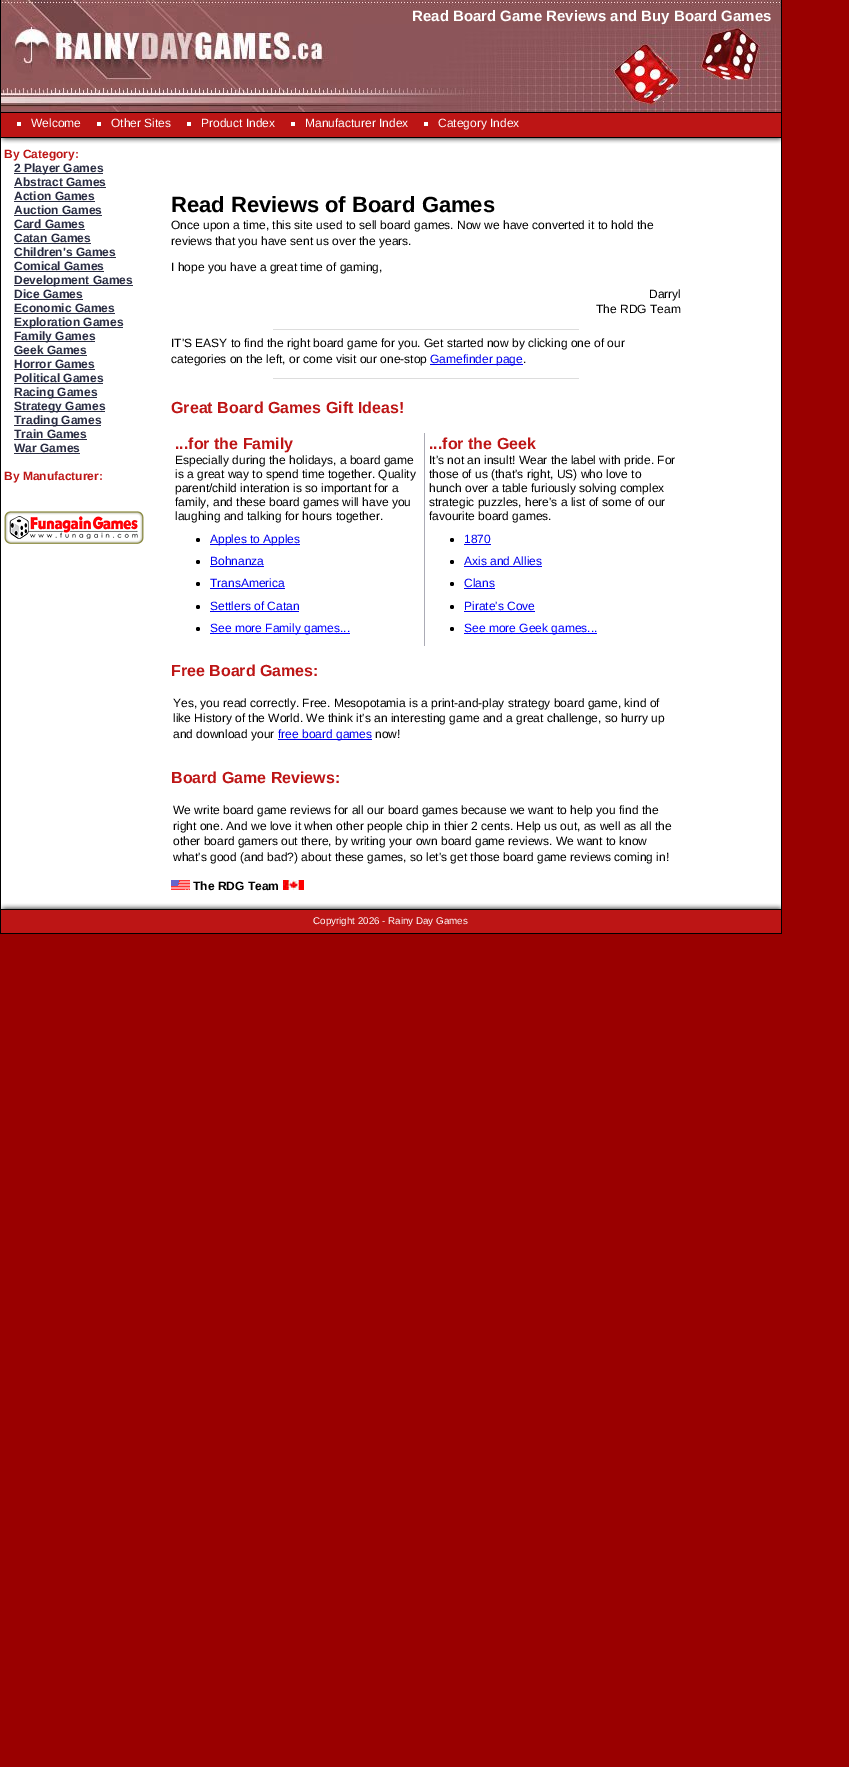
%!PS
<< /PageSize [849 1767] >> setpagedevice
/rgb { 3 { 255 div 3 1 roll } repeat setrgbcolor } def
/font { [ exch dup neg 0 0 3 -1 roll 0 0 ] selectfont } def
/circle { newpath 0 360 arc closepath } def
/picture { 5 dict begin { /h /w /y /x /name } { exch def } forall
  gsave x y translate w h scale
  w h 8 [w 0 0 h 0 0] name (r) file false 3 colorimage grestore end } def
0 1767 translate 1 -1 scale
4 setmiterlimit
154 0 0 rgb
0 0 849 1767 rectfill
[
  [1 144 780 759 255 255 255]
  [781 0 1 934 0 0 0]
  [0 933 782 1 0 0 0]
  [0 0 1 934 0 0 0]
] { aload pop rgb rectfill } forall
(img/1.rgb) 1 0 780 112 picture
[
  [1 113 780 24 189 21 21]
  [1 112 780 1 0 0 0]
  [17 122 4 4 255 255 255]
  [97 122 4 4 255 255 255]
  [187 122 4 4 255 255 255]
  [291 122 4 4 255 255 255]
  [424 122 4 4 255 255 255]
] { aload pop rgb rectfill } forall
(img/2.rgb) 1 137 780 7 picture
[
  [14 173 89 1 41 44 66]
  [14 187 92 1 41 44 66]
  [14 201 81 1 41 44 66]
  [14 215 88 1 41 44 66]
  [14 229 71 1 41 44 66]
  [14 243 77 1 41 44 66]
  [14 257 102 1 41 44 66]
  [14 271 90 1 41 44 66]
  [14 285 119 1 41 44 66]
  [14 299 69 1 41 44 66]
  [14 313 101 1 41 44 66]
  [14 327 109 1 41 44 66]
  [14 341 81 1 41 44 66]
  [14 355 73 1 41 44 66]
  [14 369 81 1 41 44 66]
  [14 383 89 1 41 44 66]
  [14 397 83 1 41 44 66]
  [14 411 91 1 41 44 66]
  [14 425 87 1 41 44 66]
  [14 439 73 1 41 44 66]
  [14 453 66 1 41 44 66]
] { aload pop rgb rectfill } forall
(img/3.rgb) 4 511 140 33 picture
[
  [273 329 306 1 221 221 221]
  [430 364 93 1 0 0 238]
  [273 378 306 1 221 221 221]
  [424 433 1 213 171 171 181]
] { aload pop rgb rectfill } forall
0 0 0 rgb
198 540 2 circle fill
0 0 238 rgb
210 544 90 1 rectfill
0 0 0 rgb
198 562 2 circle fill
0 0 238 rgb
210 566 54 1 rectfill
0 0 0 rgb
198 584 2 circle fill
0 0 238 rgb
210 588 75 1 rectfill
0 0 0 rgb
198 607 2 circle fill
0 0 238 rgb
210 611 89 1 rectfill
0 0 0 rgb
198 629 2 circle fill
0 0 255 rgb
210 633 140 1 rectfill
0 0 0 rgb
452 540 2 circle fill
0 0 238 rgb
464 544 27 1 rectfill
0 0 0 rgb
452 562 2 circle fill
0 0 238 rgb
464 566 78 1 rectfill
0 0 0 rgb
452 584 2 circle fill
0 0 238 rgb
464 588 31 1 rectfill
0 0 0 rgb
452 607 2 circle fill
0 0 238 rgb
464 611 71 1 rectfill
0 0 0 rgb
452 629 2 circle fill
0 0 255 rgb
464 633 133 1 rectfill
0 0 238 rgb
278 739 94 1 rectfill
(img/4.rgb) 171 880 19 10 picture
(img/5.rgb) 283 880 21 10 picture
189 21 21 rgb
1 910 780 23 rectfill
(img/6.rgb) 1 903 780 7 picture
/LiberationSans-Bold 15 font
255 255 255 rgb
412 21 moveto (Read Board Game Reviews and Buy Board Games) show
/LiberationSans-Regular 12 font
[
  [(Welcome) 31 127]
  [(Other Sites) 111 127]
  [(Product Index) 201 127]
  [(Manufacturer Index) 305 127]
  [(Category Index) 438 127]
] { aload pop moveto show } forall
/LiberationSans-Bold 12 font
189 21 21 rgb
4 158 moveto (By Category:) show
41 44 66 rgb
[
  [(2 Player Games) 14 172]
  [(Abstract Games) 14 186]
  [(Action Games) 14 200]
  [(Auction Games) 14 214]
  [(Card Games) 14 228]
  [(Catan Games) 14 242]
  [(Children's Games) 14 256]
  [(Comical Games) 14 270]
  [(Development Games) 14 284]
  [(Dice Games) 14 298]
  [(Economic Games) 14 312]
  [(Exploration Games) 14 326]
  [(Family Games) 14 340]
  [(Geek Games) 14 354]
  [(Horror Games) 14 368]
  [(Political Games) 14 382]
  [(Racing Games) 14 396]
  [(Strategy Games) 14 410]
  [(Trading Games) 14 424]
  [(Train Games) 14 438]
  [(War Games) 14 452]
] { aload pop moveto show } forall
189 21 21 rgb
4 480 moveto (By Manufacturer:) show
/LiberationSans-Bold 22 font
0 0 0 rgb
171 212 moveto (Read Reviews of Board Games) show
/LiberationSans-Regular 12 font
[
  [(Once upon a time, this site used to sell board games. Now we have converted it to hold the) 171 229]
  [(reviews that you have sent us over the years.) 171 245]
  [(I hope you have a great time of gaming,) 171 271]
  [(Darryl) 649 298]
  [(The RDG Team) 596 313]
  [(IT'S EASY to find the right board game for you. Get started now by clicking one of our) 171 347]
  [(categories on the left, or come visit our one-stop) 171 363]
] { aload pop moveto show } forall
0 0 238 rgb
430 363 moveto (Gamefinder page) show
0 0 0 rgb
523 363 moveto (.) show
/LiberationSans-Bold 16 font
189 21 21 rgb
171 413 moveto (Great Board Games Gift Ideas!) show
175 449 moveto (...for the Family) show
/LiberationSans-Regular 12 font
0 0 0 rgb
[
  [(Especially during the holidays, a board game) 175 464]
  [(is a great way to spend time together. Quality) 175 478]
  [(parent/child interation is so important for a) 175 492]
  [(family, and these board games will have you) 175 506]
  [(laughing and talking for hours together.) 175 520]
] { aload pop moveto show } forall
0 0 238 rgb
[
  [(Apples to Apples) 210 543]
  [(Bohnanza) 210 565]
  [(TransAmerica) 210 587]
  [(Settlers of Catan) 210 610]
] { aload pop moveto show } forall
0 0 255 rgb
210 632 moveto (See more Family games...) show
/LiberationSans-Bold 16 font
189 21 21 rgb
429 449 moveto (...for the Geek) show
/LiberationSans-Regular 12 font
0 0 0 rgb
[
  [(It's not an insult! Wear the label with pride. For) 429 464]
  [(those of us \(that's right, US\) who love to) 429 478]
  [(hunch over a table furiously solving complex) 429 492]
  [(strategic puzzles, here's a list of some of our) 429 506]
  [(favourite board games.) 429 520]
] { aload pop moveto show } forall
0 0 238 rgb
[
  [(1870) 464 543]
  [(Axis and Allies) 464 565]
  [(Clans) 464 587]
  [(Pirate's Cove) 464 610]
] { aload pop moveto show } forall
0 0 255 rgb
464 632 moveto (See more Geek games...) show
/LiberationSans-Bold 16 font
189 21 21 rgb
171 676 moveto (Free Board Games:) show
/LiberationSans-Regular 12 font
0 0 0 rgb
[
  [(Yes, you read correctly. Free. Mesopotamia is a print-and-play strategy board game, kind of) 173 707]
  [(like History of the World. We think it's an interesting game and a great challenge, so hurry up) 173 722]
  [(and download your) 173 738]
] { aload pop moveto show } forall
0 0 238 rgb
278 738 moveto (free board games) show
0 0 0 rgb
375 738 moveto (now!) show
/LiberationSans-Bold 16 font
189 21 21 rgb
171 783 moveto (Board Game Reviews:) show
/LiberationSans-Regular 12 font
0 0 0 rgb
[
  [(We write board game reviews for all our board games because we want to help you find the) 173 814]
  [(right one. And we love it when other people chip in thier 2 cents. Help us out, as well as all the) 173 830]
  [(other board gamers out there, by writing your own board game reviews. We want to know) 173 845]
  [(what's good \(and bad?\) about these games, so let's get those board game reviews coming in!) 173 861]
] { aload pop moveto show } forall
/LiberationSans-Bold 12 font
193 890 moveto (The RDG Team) show
/LiberationSans-Regular 9.8 font
255 255 255 rgb
313 924 moveto (Copyright 2026 - Rainy Day Games) show
showpage
